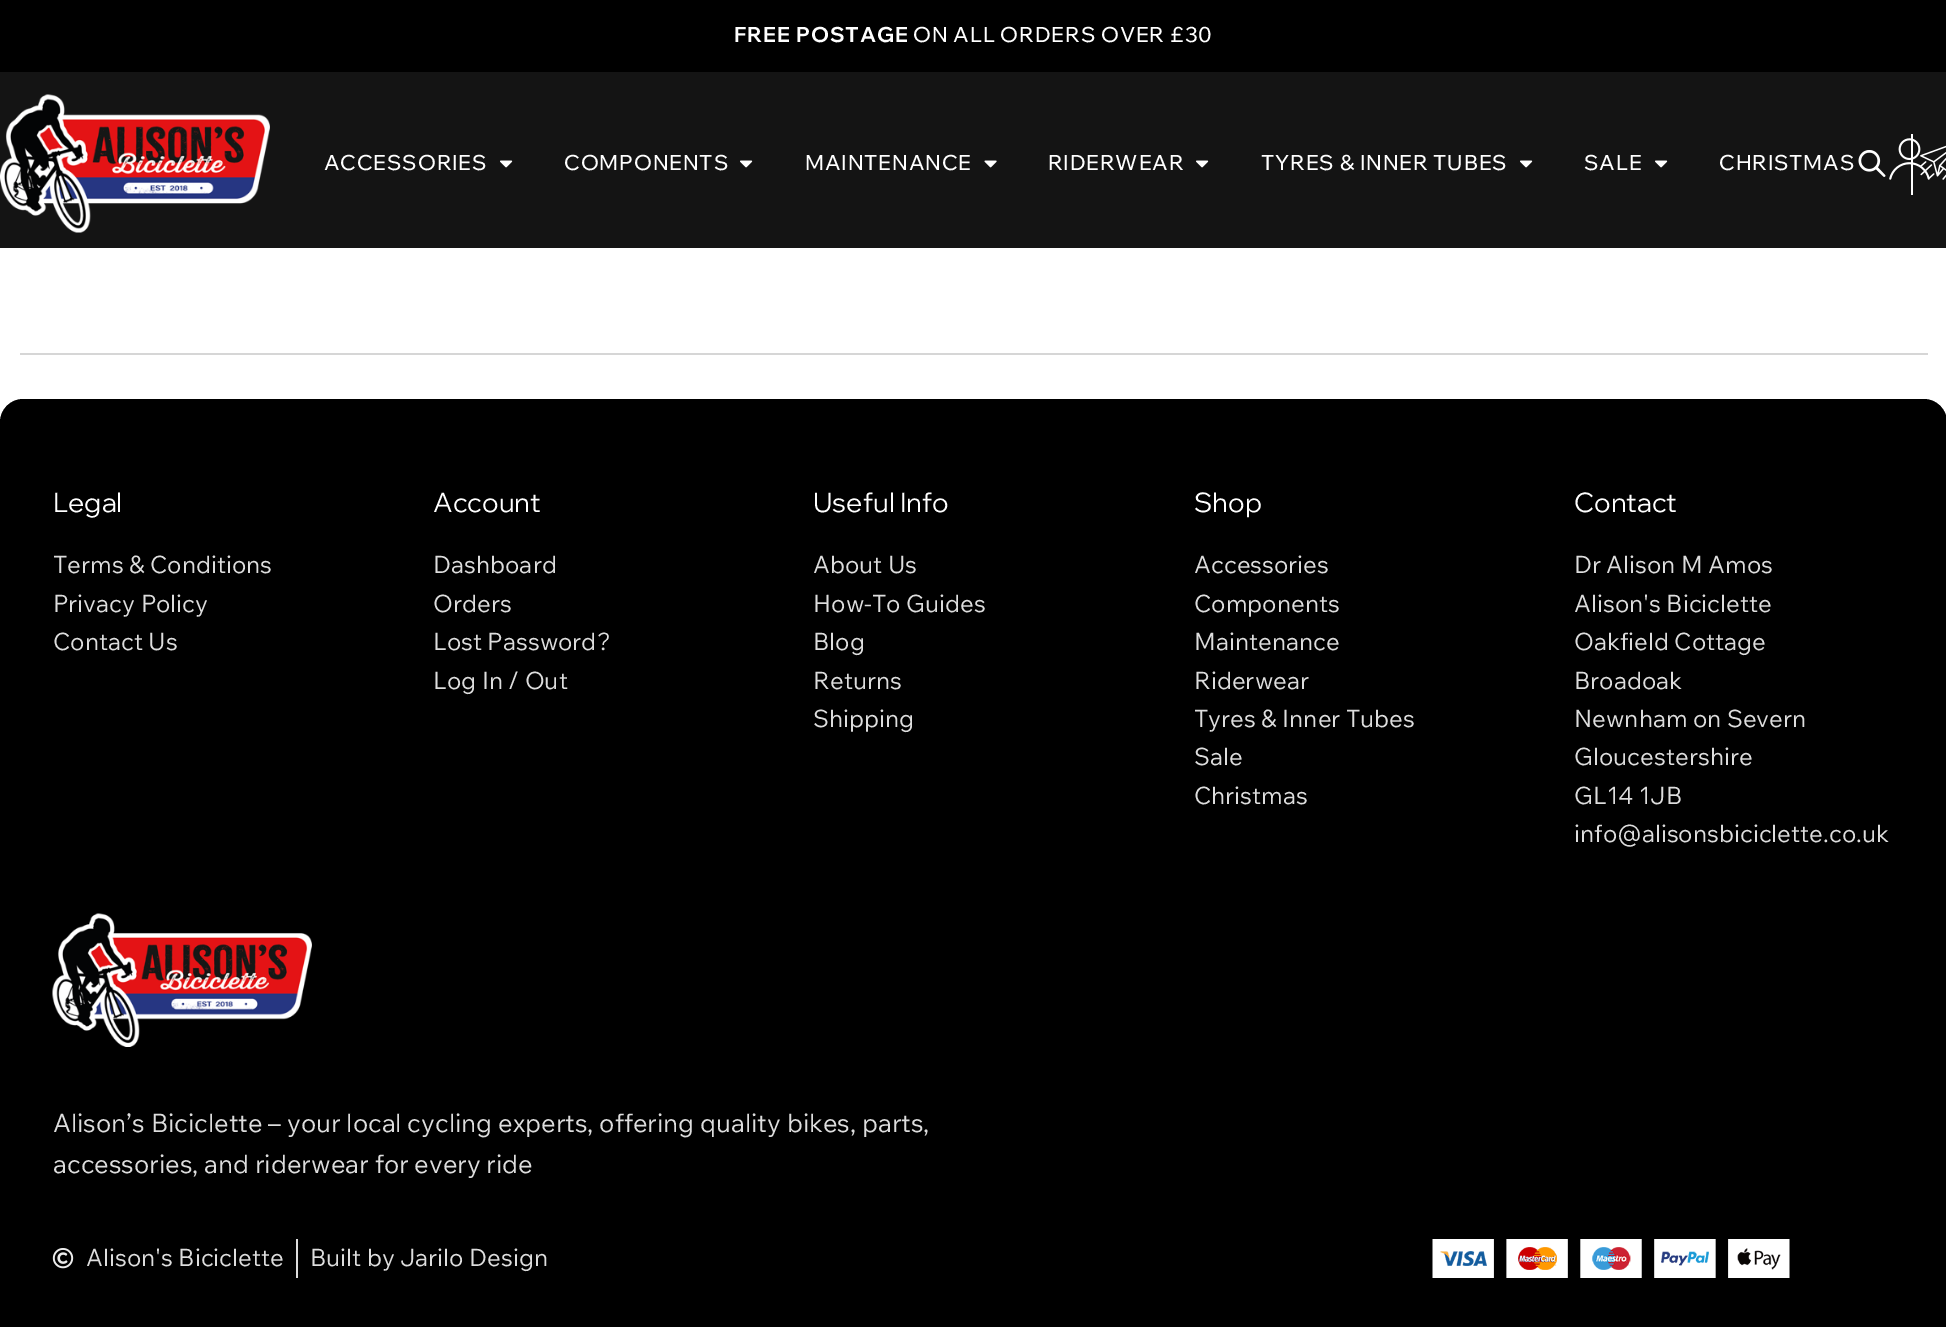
%!PS
<< /PageSize [1946 1327] >> setpagedevice
/rgb { 3 { 255 div 3 1 roll } repeat setrgbcolor } def
/font { [ exch dup neg 0 0 3 -1 roll 0 0 ] selectfont } def
/picture { 5 dict begin { /h /w /y /x /name } { exch def } forall
  gsave x y translate w h scale
  w h 8 [w 0 0 h 0 0] name (r) file false 3 colorimage grestore end } def
0 1327 translate 1 -1 scale
4 setmiterlimit
255 255 255 rgb
0 0 1946 1327 rectfill
0 0 0 rgb
0 0 1946 72 rectfill
20 20 20 rgb
0 72 1946 176 rectfill
(img/1.rgb) 0 94 270 139 picture
(img/2.rgb) 500 160 13 8 picture
(img/2.rgb) 740 160 13 8 picture
(img/3.rgb) 984 160 13 8 picture
(img/2.rgb) 1196 160 13 8 picture
(img/2.rgb) 1520 160 13 8 picture
(img/2.rgb) 1655 160 13 8 picture
255 255 255 rgb
1911 134 2 61 rectfill
(img/4.rgb) 1858 150 28 27 picture
(img/5.rgb) 1889 138 41 42 picture
(img/6.rgb) 1920 145 26 35 picture
214 214 214 rgb
20 353 1908 2 rectfill
0 0 0 rgb
23 399 moveto 1924 399 lineto 1936.5 399 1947 409.5 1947 422 curveto 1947 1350 lineto 0 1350 lineto 0 422 lineto 0 409.5 10.5 399 23 399 curveto closepath fill
(img/7.rgb) 52 913 260 134 picture
(img/8.rgb) 52 1248 22 21 picture
221 221 221 rgb
296 1239 2 39 rectfill
(img/9.rgb) 1432 1239 358 39 picture
/WixMadeforDisplay-Bold 21 font
255 255 255 rgb
734 42 moveto 0.9 0 (FREE POSTAGE) ashow
/WixMadeforDisplay-Medium 21 font
913 42 moveto 0.9 0 (ON ALL ORDERS OVER £30) ashow
324 170 moveto 0.9 0 (ACCESSORIES) ashow
564 170 moveto 0.9 0 (COMPONENTS) ashow
805 170 moveto 0.9 0 (MAINTENANCE) ashow
1048 170 moveto 0.9 0 (RIDERWEAR) ashow
1261 170 moveto 0.9 0 (TYRES & INNER TUBES) ashow
1584 170 moveto 0.9 0 (SALE) ashow
1719 170 moveto 0.9 0 (CHRISTMAS) ashow
/WixMadeforDisplay-Regular 27 font
53 512 moveto (Legal) show
/WixMadeforText-Regular 24 font
221 221 221 rgb
[
  [(Terms & Conditions) 53 573]
  [(Privacy Policy) 53 612]
  [(Contact Us) 53 650]
] { aload pop moveto show } forall
/WixMadeforDisplay-Regular 27 font
255 255 255 rgb
433 512 moveto (Account) show
/WixMadeforText-Regular 24 font
221 221 221 rgb
[
  [(Dashboard) 433 573]
  [(Orders) 433 612]
  [(Lost Password?) 433 650]
  [(Log In / Out) 433 689]
] { aload pop moveto show } forall
/WixMadeforDisplay-Regular 27 font
255 255 255 rgb
813 512 moveto (Useful Info) show
/WixMadeforText-Regular 24 font
221 221 221 rgb
[
  [(About Us) 813 573]
  [(How-To Guides) 813 612]
  [(Blog) 813 650]
  [(Returns) 813 689]
  [(Shipping) 813 727]
] { aload pop moveto show } forall
/WixMadeforDisplay-Regular 27 font
255 255 255 rgb
1194 512 moveto (Shop) show
/WixMadeforText-Regular 24 font
221 221 221 rgb
[
  [(Accessories) 1194 573]
  [(Components) 1194 612]
  [(Maintenance) 1194 650]
  [(Riderwear) 1194 689]
  [(Tyres & Inner Tubes) 1194 727]
  [(Sale) 1194 765]
  [(Christmas) 1194 804]
] { aload pop moveto show } forall
/WixMadeforDisplay-Regular 27 font
255 255 255 rgb
1574 512 moveto (Contact) show
/WixMadeforText-Regular 24 font
221 221 221 rgb
[
  [(Dr Alison M Amos) 1574 573]
  [(Alison's Biciclette) 1574 612]
  [(Oakfield Cottage) 1574 650]
  [(Broadoak) 1574 689]
  [(Newnham on Severn) 1574 727]
  [(Gloucestershire) 1574 765]
  [(GL14 1JB) 1574 804]
  [(info@alisonsbiciclette.co.uk) 1574 842]
] { aload pop moveto show } forall
/WixMadeforText-Regular 25.5 font
53 1132 moveto (Alison’s Biciclette – your local cycling experts, offering quality bikes, parts,) show
53 1173 moveto (accessories, and riderwear for every ride) show
/WixMadeforText-Regular 24 font
86 1266 moveto (Alison's Biciclette) show
310 1266 moveto (Built by Jarilo Design) show
showpage
